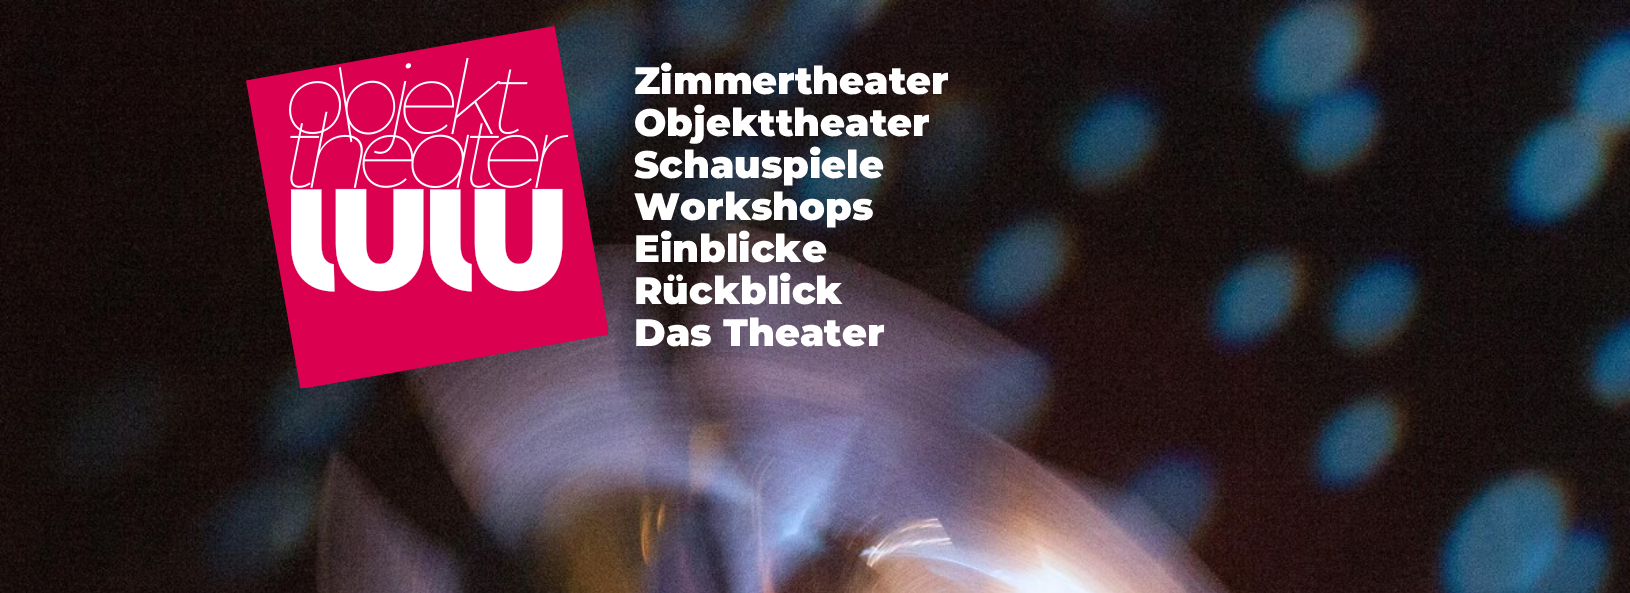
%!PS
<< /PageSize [1630 593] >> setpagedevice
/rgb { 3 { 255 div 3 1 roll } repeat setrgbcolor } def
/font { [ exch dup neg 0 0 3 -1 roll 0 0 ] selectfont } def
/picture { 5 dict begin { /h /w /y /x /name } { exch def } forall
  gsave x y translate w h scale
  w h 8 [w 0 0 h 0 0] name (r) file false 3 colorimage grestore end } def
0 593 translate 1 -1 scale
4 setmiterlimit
255 255 255 rgb
0 0 1630 593 rectfill
(img/1.rgb) 0 0 1630 593 picture
(img/2.rgb) 246 26 362 362 picture
/Montserrat-Black 38.25 font
[
  [(Zimmertheater) 634 94]
  [(Objekttheater) 634 136]
  [(Schauspiele) 634 178]
  [(Workshops) 634 220]
  [(Einblicke) 634 262]
  [(Rückblick) 634 304]
  [(Das Theater) 634 346]
] { aload pop moveto show } forall
showpage
